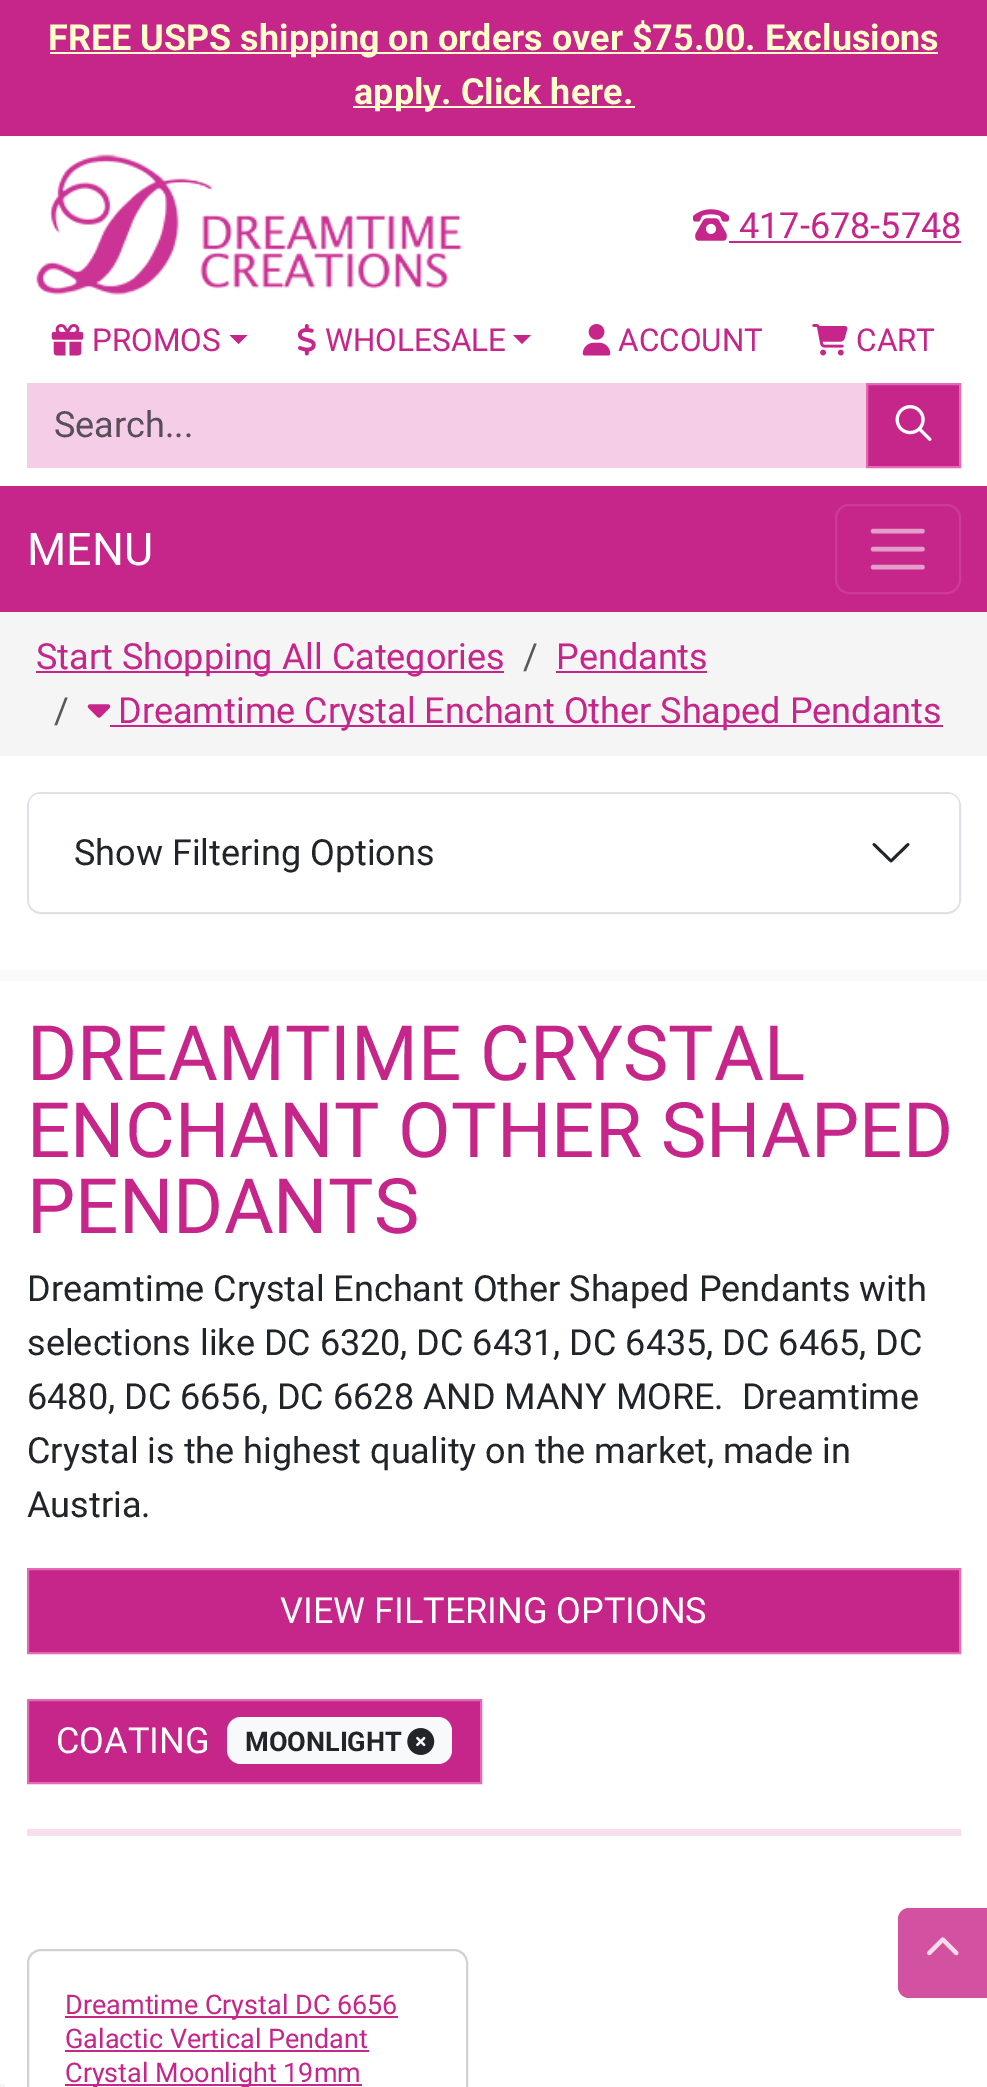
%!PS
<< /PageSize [987 2087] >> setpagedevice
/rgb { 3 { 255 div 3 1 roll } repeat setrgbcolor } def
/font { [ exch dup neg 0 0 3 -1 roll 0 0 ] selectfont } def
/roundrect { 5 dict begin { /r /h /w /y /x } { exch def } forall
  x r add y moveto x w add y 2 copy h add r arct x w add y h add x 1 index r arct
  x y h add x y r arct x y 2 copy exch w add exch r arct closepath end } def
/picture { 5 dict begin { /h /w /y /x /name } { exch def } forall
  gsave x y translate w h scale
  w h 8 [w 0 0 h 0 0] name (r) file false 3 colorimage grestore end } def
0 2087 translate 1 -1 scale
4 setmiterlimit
255 255 255 rgb
0 0 987 2087 rectfill
[
  [0 0 987 136 198 37 137]
  [50 52 888 2 255 255 204]
  [353 106 282 2 255 255 204]
] { aload pop rgb rectfill } forall
(img/1.rgb) 36 154 426 141 picture
(img/2.rgb) 693 209 36 32 picture
198 37 137 rgb
729 241 232 2 rectfill
(img/3.rgb) 51 324 33 32 picture
229.5 335 moveto 247.5 335 lineto 238.5 344 lineto closepath fill
(img/4.rgb) 297 324 19 32 picture
513 335 moveto 531 335 lineto 522 344 lineto closepath fill
(img/5.rgb) 582 324 29 32 picture
(img/6.rgb) 812 324 36 32 picture
246 205 230 rgb
27 383 839 85 rectfill
198 37 137 rgb
867 384 moveto 960 384 lineto 960 467 lineto 867 467 lineto closepath gsave fill grestore
227 106 181 rgb
2 setlinewidth
stroke
(img/7.rgb) 895 405 37 36 picture
198 37 137 rgb
0 486 987 126 rectfill
204 59 149 rgb
836 505 124 88 13 roundrect stroke
229 157 202 rgb
4.5 setlinewidth
1 setlinecap
873 531 moveto 922.5 531 lineto 873 549 moveto 922.5 549 lineto 873 567 moveto 922.5 567 lineto stroke
[
  [0 612 987 144 245 245 245]
  [36 671 468 2 198 37 137]
  [556 671 151 2 198 37 137]
] { aload pop rgb rectfill } forall
(img/8.rgb) 87 704 24 14 picture
110 725 833 2 rectfill
250 250 250 rgb
0 970 987 11 rectfill
222 226 230 rgb
2 setlinewidth
0 setlinecap
28 793 932 120 13 roundrect stroke
255 255 255 rgb
29 794 930 117 11 roundrect fill
33 37 41 rgb
2.8 setlinewidth
1 setlinecap
1 setlinejoin
874 844.5 moveto 891 861 lineto 908 844.5 lineto stroke
198 37 137 rgb
28 1569 moveto 960 1569 lineto 960 1653 lineto 28 1653 lineto closepath gsave fill grestore
227 106 181 rgb
2 setlinewidth
0 setlinecap
0 setlinejoin
stroke
198 37 137 rgb
28 1700 moveto 481 1700 lineto 481 1783 lineto 28 1783 lineto closepath gsave fill grestore
227 106 181 rgb
stroke
248 249 250 rgb
227 1717 225 47 14 roundrect fill
(img/9.rgb) 407 1728 28 27 picture
249 222 238 rgb
27 1829 934 7 rectfill
210 210 210 rgb
28 1950 439 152 13 roundrect stroke
[
  [65 2016 333 2 198 37 137]
  [65 2050 304 2 198 37 137]
  [65 2084 297 2 198 37 137]
] { aload pop rgb rectfill } forall
210 82 161 rgb
909 1908 moveto 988 1908 lineto 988 1998 lineto 909 1998 lineto 903 1998 898 1993 898 1987 curveto 898 1919 lineto 898 1913 903 1908 909 1908 curveto closepath fill
(img/10.rgb) 927 1937 32 19 picture
245 245 245 rgb
0 2084 5 3 rectfill
/Roboto-Bold 36 font
255 255 204 rgb
48 50 moveto (FREE USPS shipping on orders over $75.00. Exclusions) show
354 104 moveto (apply. Click here.) show
/Roboto-Regular 36 font
198 37 137 rgb
739 238 moveto (417-678-5748) show
/Roboto-Regular 31.5 font
[
  [(PROMOS) 92 351]
  [(WHOLESALE) 325 351]
  [(ACCOUNT) 618 351]
  [(CART) 856 351]
] { aload pop moveto show } forall
/Roboto-Regular 36 font
86 79 88 rgb
54 437 moveto (Search...) show
/Roboto-Regular 45 font
255 255 255 rgb
27 565 moveto (MENU) show
/Roboto-Regular 36 font
198 37 137 rgb
36 669 moveto (Start Shopping All Categories) show
86 89 92 rgb
523 669 moveto (/) show
198 37 137 rgb
556 669 moveto (Pendants) show
86 89 92 rgb
54 723 moveto (/) show
198 37 137 rgb
118 723 moveto (Dreamtime Crystal Enchant Other Shaped Pendants) show
33 37 41 rgb
74 865 moveto (Show Filtering Options) show
/Roboto-Regular 76.5 font
198 37 137 rgb
[
  [(DREAMTIME CRYSTAL) 27 1080]
  [(ENCHANT OTHER SHAPED) 27 1157]
  [(PENDANTS) 27 1233]
] { aload pop moveto show } forall
/Roboto-Regular 36 font
33 37 41 rgb
[
  [(Dreamtime Crystal Enchant Other Shaped Pendants with) 27 1301]
  [(selections like DC 6320, DC 6431, DC 6435, DC 6465, DC) 27 1355]
  [(6480, DC 6656, DC 6628 AND MANY MORE.  Dreamtime) 27 1409]
  [(Crystal is the highest quality on the market, made in) 27 1463]
  [(Austria.) 27 1517]
] { aload pop moveto show } forall
255 255 255 rgb
280 1623 moveto (VIEW FILTERING OPTIONS) show
56 1753 moveto (COATING) show
/Roboto-Bold 27 font
33 37 41 rgb
245 1751 moveto (MOONLIGHT) show
/Roboto-Regular 27 font
198 37 137 rgb
[
  [(Dreamtime Crystal DC 6656) 65 2014]
  [(Galactic Vertical Pendant) 65 2048]
  [(Crystal Moonlight 19mm) 65 2082]
] { aload pop moveto show } forall
showpage
